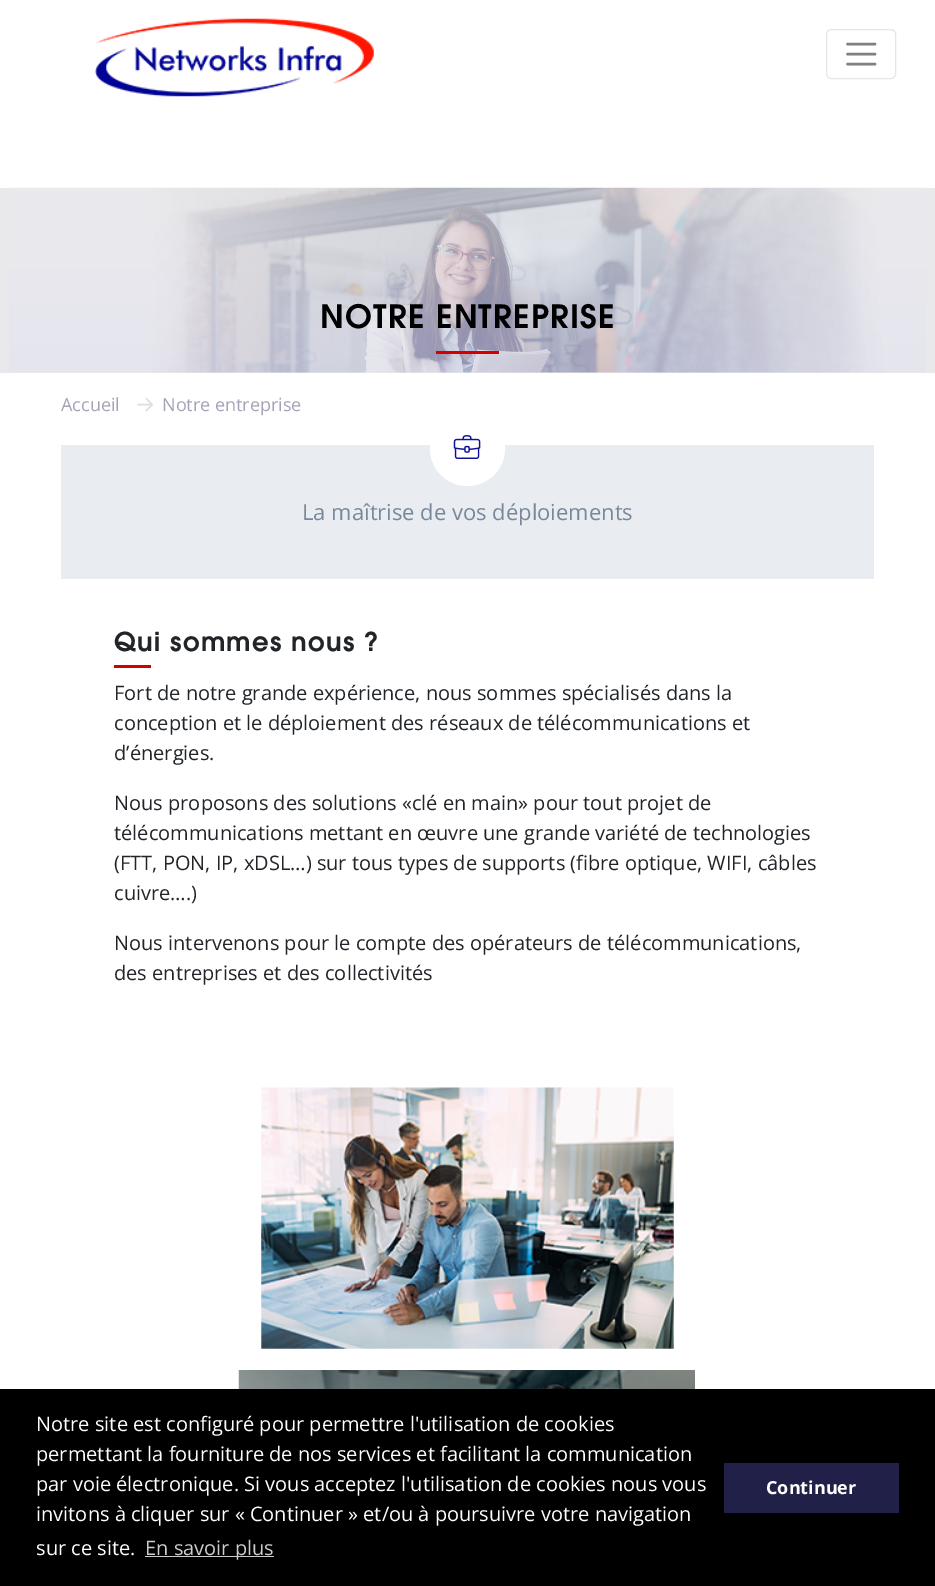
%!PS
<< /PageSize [935 1586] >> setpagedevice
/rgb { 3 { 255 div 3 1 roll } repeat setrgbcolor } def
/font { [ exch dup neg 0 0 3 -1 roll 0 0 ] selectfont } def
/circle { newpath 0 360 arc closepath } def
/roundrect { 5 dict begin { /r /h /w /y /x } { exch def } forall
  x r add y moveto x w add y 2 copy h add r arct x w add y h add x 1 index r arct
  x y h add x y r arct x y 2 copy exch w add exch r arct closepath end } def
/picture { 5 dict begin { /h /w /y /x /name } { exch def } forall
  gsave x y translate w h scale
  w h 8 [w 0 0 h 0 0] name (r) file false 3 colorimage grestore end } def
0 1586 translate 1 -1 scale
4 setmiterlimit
255 255 255 rgb
0 0 935 1586 rectfill
(img/1.rgb) 95 18 279 79 picture
230 230 230 rgb
826.5 29.5 69 49 4.5 roundrect stroke
128 128 128 rgb
2.5 setlinewidth
1 setlinecap
847.5 44 moveto 875 44 lineto 847.5 54 moveto 875 54 lineto 847.5 64 moveto 875 64 lineto stroke
233 233 236 rgb
0 188 935 185 rectfill
(img/2.rgb) 9 187 917 186 picture
212 0 0 rgb
436 351 63 3 rectfill
(img/3.rgb) 137 397 17 15 picture
233 237 242 rgb
61 445 813 134 rectfill
255 255 255 rgb
467.5 448.5 37.5 circle fill
(img/4.rgb) 453 435 28 24 picture
212 0 0 rgb
114 665 37 3 rectfill
(img/5.rgb) 261 1087 413 262 picture
(img/6.rgb) 238 1370 457 19 picture
[
  [0 1389 935 197 0 0 0]
  [145 1556 129 1 204 204 204]
  [724 1463 175 50 32 32 72]
] { aload pop rgb rectfill } forall
/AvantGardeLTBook-Bold 32 font
0 0 0 rgb
320 328 moveto 1.25 0 (NOTRE ENTREPRISE) ashow
/OpenSans-Regular 18 font
163 163 182 rgb
61 411 moveto (Accueil) show
162 411 moveto (Notre entreprise) show
/OpenSans-Regular 22 font
121 135 153 rgb
302 520 moveto (La maîtrise de vos déploiements) show
/AvantGardeLTBook-Bold 26 font
33 37 41 rgb
114 651 moveto 1.25 0 (Qui sommes nous ?) ashow
/OpenSans-Regular 20 font
[
  [(Fort de notre grande expérience, nous sommes spécialisés dans la) 114 700]
  [(conception et le déploiement des réseaux de télécommunications et) 114 730]
  [(d’énergies.) 114 760]
  [(Nous proposons des solutions «clé en main» pour tout projet de) 114 810]
  [(télécommunications mettant en œuvre une grande variété de technologies) 114 840]
  [(\(FTT, PON, IP, xDSL…\) sur tous types de supports \(fibre optique, WIFI, câbles) 114 870]
  [(cuivre….\)) 114 900]
  [(Nous intervenons pour le compte des opérateurs de télécommunications,) 114 950]
  [(des entreprises et des collectivités) 114 980]
] { aload pop moveto show } forall
255 255 255 rgb
[
  [(Notre site est configuré pour permettre l'utilisation de cookies) 36 1431]
  [(permettant la fourniture de nos services et facilitant la communication) 36 1461]
  [(par voie électronique. Si vous acceptez l'utilisation de cookies nous vous) 36 1491]
  [(invitons à cliquer sur « Continuer » et/ou à poursuivre votre navigation) 36 1521]
  [(sur ce site.) 36 1555]
] { aload pop moveto show } forall
204 204 204 rgb
145 1555 moveto (En savoir plus) show
/OpenSans-Bold 18 font
255 255 255 rgb
766 1494 moveto (Continuer) show
showpage
